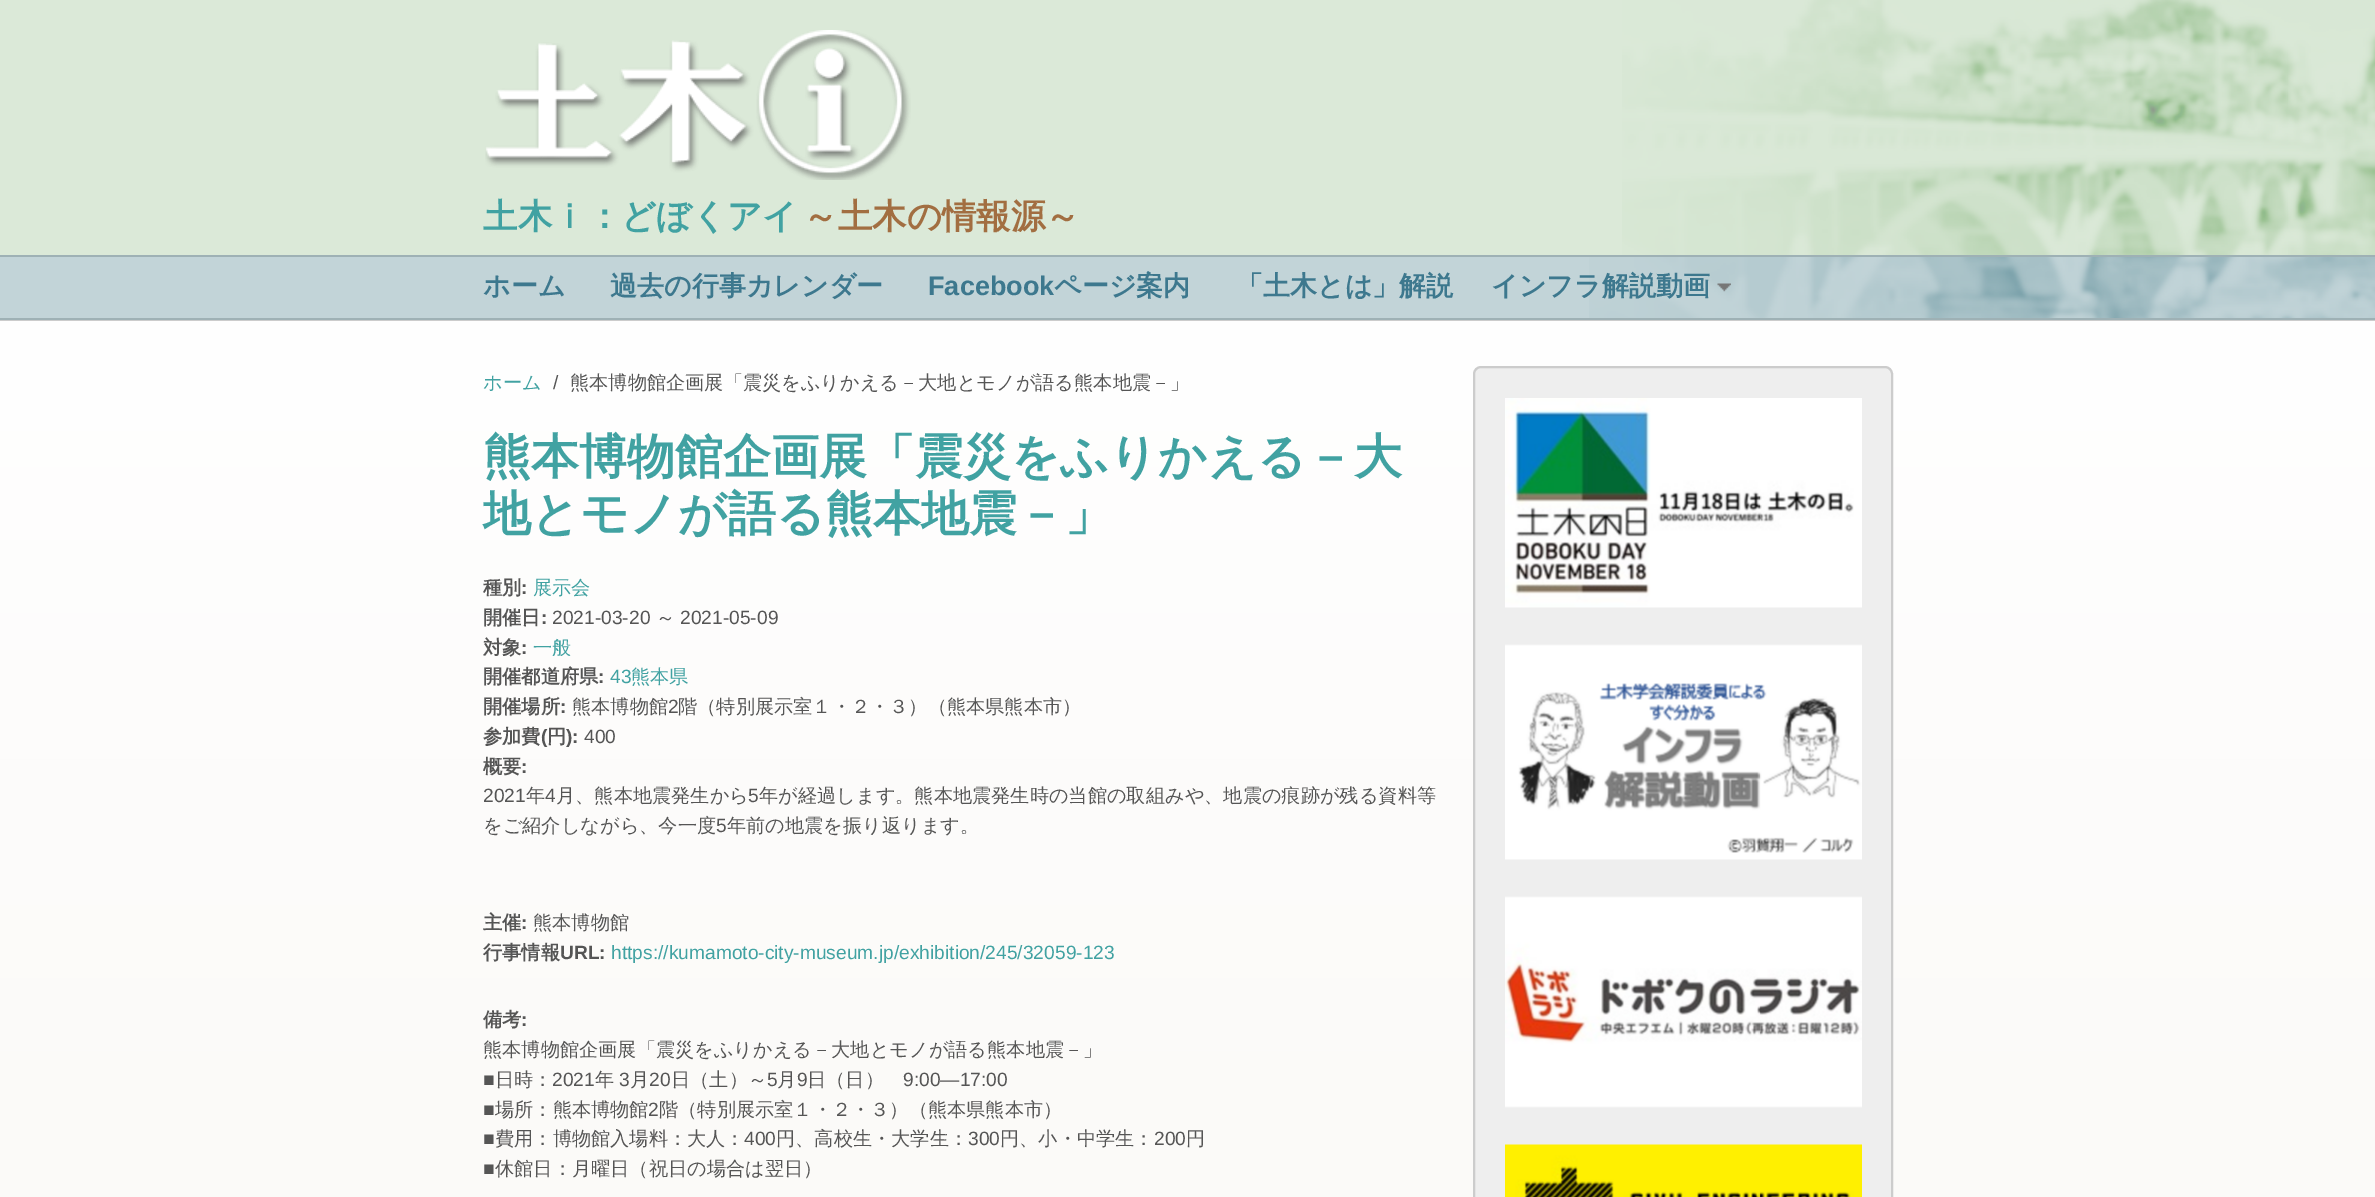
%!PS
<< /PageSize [2375 1197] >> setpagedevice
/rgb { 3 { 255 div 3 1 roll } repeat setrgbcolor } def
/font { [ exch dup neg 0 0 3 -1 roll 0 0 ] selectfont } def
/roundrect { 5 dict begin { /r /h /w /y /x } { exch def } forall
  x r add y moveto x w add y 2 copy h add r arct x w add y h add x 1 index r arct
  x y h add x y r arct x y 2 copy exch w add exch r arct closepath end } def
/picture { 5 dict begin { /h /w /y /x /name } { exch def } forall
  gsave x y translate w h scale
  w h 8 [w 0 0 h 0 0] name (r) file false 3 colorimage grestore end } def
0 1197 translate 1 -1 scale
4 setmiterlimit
219 233 216 rgb
0 0 2375 1197 rectfill
(img/1.rgb) 1622 0 753 255 picture
(img/2.rgb) 485 30 426 150 picture
194 212 216 rgb
0 257 1589 61 rectfill
(img/3.rgb) 1589 257 786 61 picture
158 177 181 rgb
0 255 2375 2 rectfill
0 318 2375 2 rectfill
(img/4.rgb) 1717 283 14 9 picture
204 204 204 rgb
0 320 2375 1 rectfill
gsave 0 321 moveto 2375 321 lineto 2375 1197 lineto 0 1197 lineto closepath clip newpath
<< /ShadingType 2 /ColorSpace /DeviceRGB /Coords [1188 321 1188 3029] /Extend [true true] /Function << /FunctionType 2 /Domain [0 1] /C0 [1 1 1] /C1 [0.949 0.937 0.91] /N 1 >> >> shfill grestore
238 238 238 rgb
1474 367 418 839 7 roundrect gsave fill grestore
204 204 204 rgb
2 setlinewidth
stroke
(img/5.rgb) 1505 398 357 210 picture
(img/6.rgb) 1505 644 357 216 picture
(img/7.rgb) 1505 896 357 212 picture
(img/8.rgb) 1505 1144 357 53 picture
/WenQuanYiZenHei-Bold 34.5 font
65 162 162 rgb
483 228 moveto (土木ｉ：どぼくアイ) show
162 110 65 rgb
803 228 moveto (～土木の情報源～) show
/WenQuanYiZenHei-Bold 27 font
61 120 142 rgb
483 295 moveto (ホーム) show
610 295 moveto (過去の行事カレンダー) show
/LiberationSans-Bold 27 font
928 295 moveto (Facebook) show
/WenQuanYiZenHei-Bold 27 font
[
  [(ページ案内) 1054 295]
  [(「土木とは」解説) 1236 295]
  [(インフラ解説動画) 1491 295]
] { aload pop moveto show } forall
/WenQuanYiZenHei-Medium 19.2 font
65 162 162 rgb
483 389 moveto (ホーム) show
/LiberationSans-Regular 19.2 font
85 85 85 rgb
553 389 moveto (/) show
/WenQuanYiZenHei-Medium 19.2 font
570 389 moveto (熊本博物館企画展「震災をふりかえる－大地とモノが語る熊本地震－」) show
/WenQuanYiZenHei-Bold 48 font
65 162 162 rgb
483 473 moveto (熊本博物館企画展「震災をふりかえる－大) show
483 530 moveto (地とモノが語る熊本地震－」) show
/WenQuanYiZenHei-Bold 19.2 font
85 85 85 rgb
483 594 moveto (種別) show
/LiberationSans-Bold 19.2 font
521 594 moveto (:) show
/WenQuanYiZenHei-Medium 19.2 font
65 162 162 rgb
533 594 moveto (展示会) show
/WenQuanYiZenHei-Bold 19.2 font
85 85 85 rgb
483 624 moveto (開催日) show
/LiberationSans-Bold 19.2 font
541 624 moveto (:) show
/LiberationSans-Regular 19.2 font
552 624 moveto (2021-03-20) show
/WenQuanYiZenHei-Medium 19.2 font
656 624 moveto (～) show
/LiberationSans-Regular 19.2 font
680 624 moveto (2021-05-09) show
/WenQuanYiZenHei-Bold 19.2 font
483 654 moveto (対象) show
/LiberationSans-Bold 19.2 font
521 654 moveto (:) show
/WenQuanYiZenHei-Medium 19.2 font
65 162 162 rgb
533 654 moveto (一般) show
/WenQuanYiZenHei-Bold 19.2 font
85 85 85 rgb
483 683 moveto (開催都道府県) show
/LiberationSans-Bold 19.2 font
598 683 moveto (:) show
/LiberationSans-Regular 19.2 font
65 162 162 rgb
610 683 moveto (43) show
/WenQuanYiZenHei-Medium 19.2 font
631 683 moveto (熊本県) show
/WenQuanYiZenHei-Bold 19.2 font
85 85 85 rgb
483 713 moveto (開催場所) show
/LiberationSans-Bold 19.2 font
560 713 moveto (:) show
/WenQuanYiZenHei-Medium 19.2 font
572 713 moveto (熊本博物館) show
/LiberationSans-Regular 19.2 font
668 713 moveto (2) show
/WenQuanYiZenHei-Medium 19.2 font
678 713 moveto (階（特別展示室１・２・３）（熊本県熊本市）) show
/WenQuanYiZenHei-Bold 19.2 font
483 743 moveto (参加費) show
/LiberationSans-Bold 19.2 font
541 743 moveto (\() show
/WenQuanYiZenHei-Bold 19.2 font
547 743 moveto (円) show
/LiberationSans-Bold 19.2 font
566 743 moveto (\):) show
/LiberationSans-Regular 19.2 font
584 743 moveto (400) show
/WenQuanYiZenHei-Bold 19.2 font
483 773 moveto (概要) show
/LiberationSans-Bold 19.2 font
521 773 moveto (:) show
/LiberationSans-Regular 19.2 font
483 802 moveto (2021) show
/WenQuanYiZenHei-Medium 19.2 font
526 802 moveto (年) show
/LiberationSans-Regular 19.2 font
545 802 moveto (4) show
/WenQuanYiZenHei-Medium 19.2 font
556 802 moveto (月、熊本地震発生から) show
/LiberationSans-Regular 19.2 font
748 802 moveto (5) show
/WenQuanYiZenHei-Medium 19.2 font
759 802 moveto (年が経過します。熊本地震発生時の当館の取組みや、地震の痕跡が残る資料等) show
483 832 moveto (をご紹介しながら、今一度) show
/LiberationSans-Regular 19.2 font
716 832 moveto (5) show
/WenQuanYiZenHei-Medium 19.2 font
727 832 moveto (年前の地震を振り返ります。) show
/WenQuanYiZenHei-Bold 19.2 font
483 929 moveto (主催) show
/LiberationSans-Bold 19.2 font
521 929 moveto (:) show
/WenQuanYiZenHei-Medium 19.2 font
533 929 moveto (熊本博物館) show
/WenQuanYiZenHei-Bold 19.2 font
483 959 moveto (行事情報) show
/LiberationSans-Bold 19.2 font
560 959 moveto (URL:) show
/LiberationSans-Regular 19.2 font
65 162 162 rgb
611 959 moveto (https://kumamoto-city-museum.jp/exhibition/245/32059-123) show
/WenQuanYiZenHei-Bold 19.2 font
85 85 85 rgb
483 1026 moveto (備考) show
/LiberationSans-Bold 19.2 font
521 1026 moveto (:) show
/WenQuanYiZenHei-Medium 19.2 font
483 1056 moveto (熊本博物館企画展「震災をふりかえる－大地とモノが語る熊本地震－」) show
/LiberationSans-Regular 19.2 font
483 1086 moveto (■) show
/WenQuanYiZenHei-Medium 19.2 font
495 1086 moveto (日時：) show
/LiberationSans-Regular 19.2 font
552 1086 moveto (2021) show
/WenQuanYiZenHei-Medium 19.2 font
595 1086 moveto (年) show
/LiberationSans-Regular 19.2 font
619 1086 moveto (3) show
/WenQuanYiZenHei-Medium 19.2 font
630 1086 moveto (月) show
/LiberationSans-Regular 19.2 font
649 1086 moveto (20) show
/WenQuanYiZenHei-Medium 19.2 font
671 1086 moveto (日（土）～) show
/LiberationSans-Regular 19.2 font
767 1086 moveto (5) show
/WenQuanYiZenHei-Medium 19.2 font
777 1086 moveto (月) show
/LiberationSans-Regular 19.2 font
797 1086 moveto (9) show
/WenQuanYiZenHei-Medium 19.2 font
807 1086 moveto (日（日）) show
/LiberationSans-Regular 19.2 font
903 1086 moveto (9:00―17:00) show
483 1116 moveto (■) show
/WenQuanYiZenHei-Medium 19.2 font
495 1116 moveto (場所：熊本博物館) show
/LiberationSans-Regular 19.2 font
648 1116 moveto (2) show
/WenQuanYiZenHei-Medium 19.2 font
659 1116 moveto (階（特別展示室１・２・３）（熊本県熊本市）) show
/LiberationSans-Regular 19.2 font
483 1145 moveto (■) show
/WenQuanYiZenHei-Medium 19.2 font
495 1145 moveto (費用：博物館入場料：大人：) show
/LiberationSans-Regular 19.2 font
744 1145 moveto (400) show
/WenQuanYiZenHei-Medium 19.2 font
776 1145 moveto (円、高校生・大学生：) show
/LiberationSans-Regular 19.2 font
968 1145 moveto (300) show
/WenQuanYiZenHei-Medium 19.2 font
1000 1145 moveto (円、小・中学生：) show
/LiberationSans-Regular 19.2 font
1154 1145 moveto (200) show
/WenQuanYiZenHei-Medium 19.2 font
1186 1145 moveto (円) show
/LiberationSans-Regular 19.2 font
483 1175 moveto (■) show
/WenQuanYiZenHei-Medium 19.2 font
495 1175 moveto (休館日：月曜日（祝日の場合は翌日）) show
showpage
